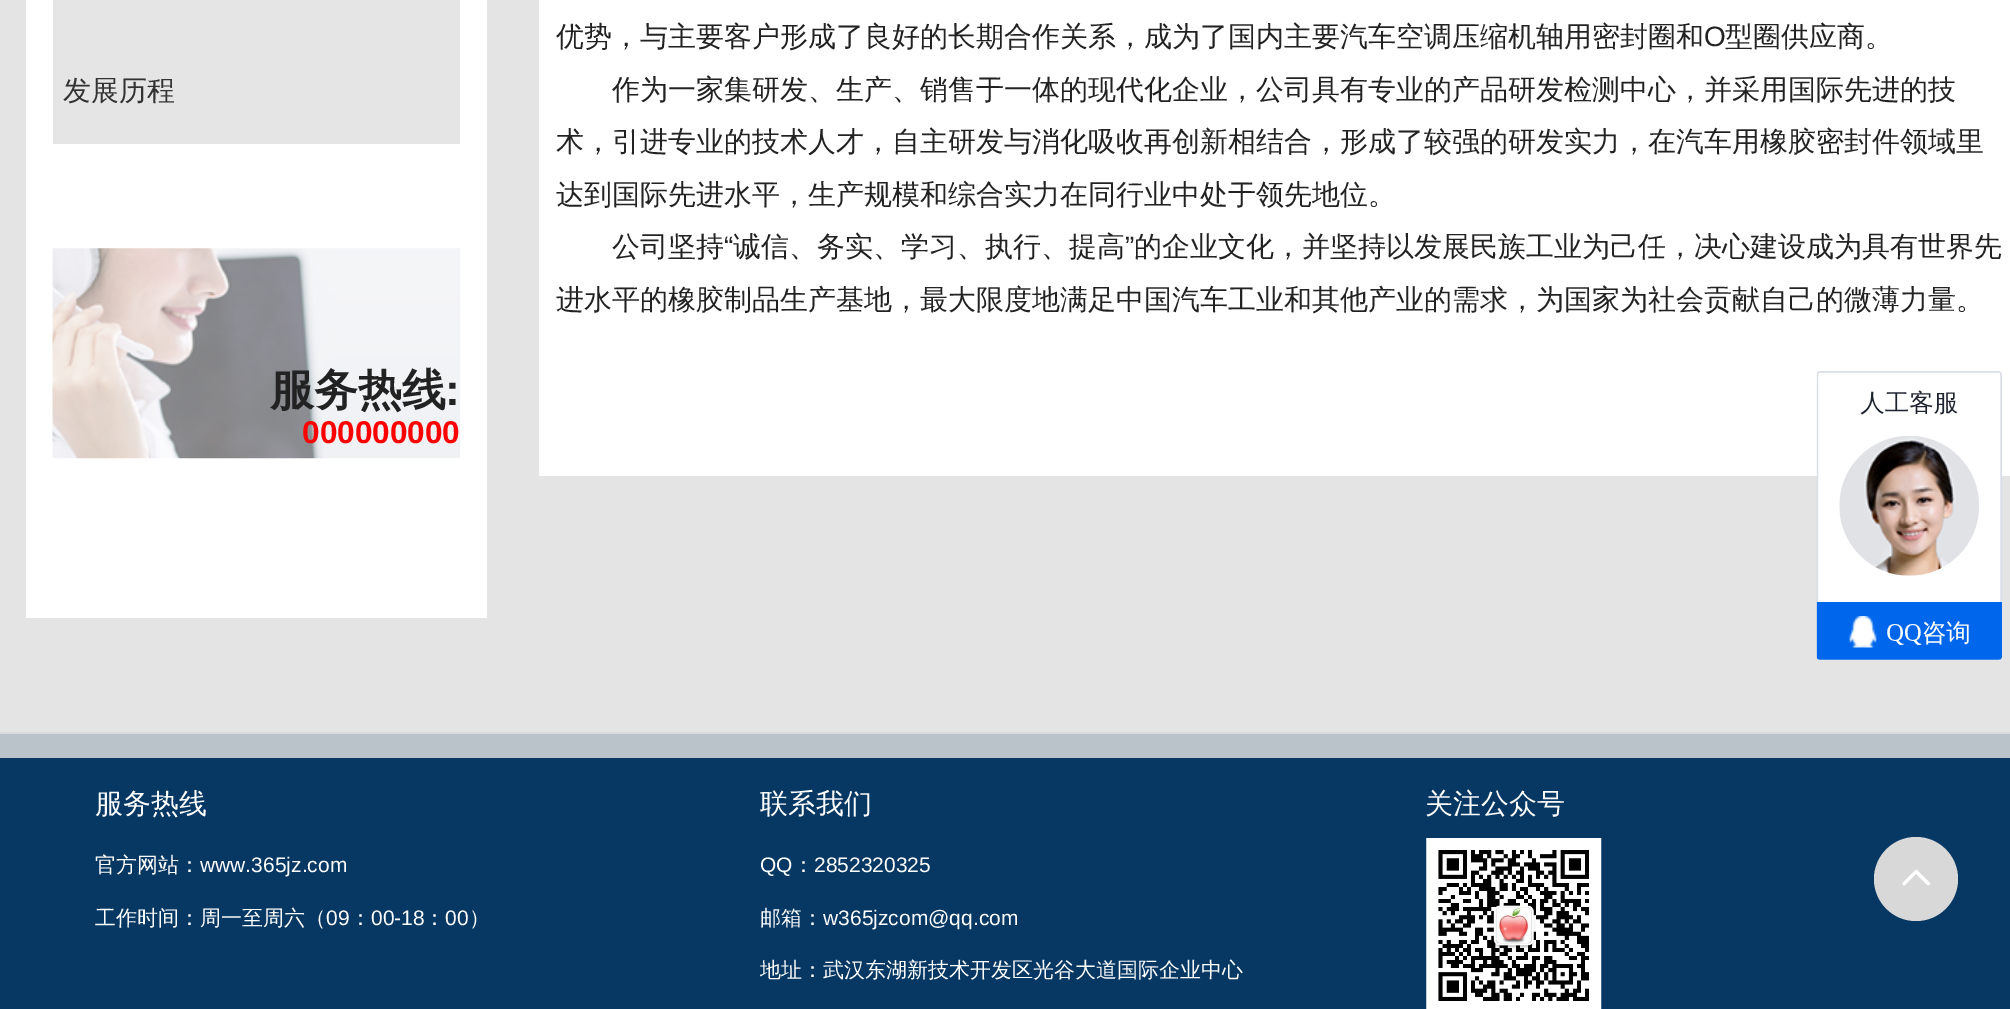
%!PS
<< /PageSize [2010 1009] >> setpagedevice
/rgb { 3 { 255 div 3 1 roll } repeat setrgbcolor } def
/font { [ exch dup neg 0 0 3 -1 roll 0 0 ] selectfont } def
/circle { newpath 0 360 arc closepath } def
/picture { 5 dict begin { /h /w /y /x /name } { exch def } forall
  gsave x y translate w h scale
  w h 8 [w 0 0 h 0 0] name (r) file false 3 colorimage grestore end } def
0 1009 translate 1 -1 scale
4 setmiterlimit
228 228 228 rgb
0 0 2010 1009 rectfill
255 255 255 rgb
26 0 461 618 rectfill
229 229 229 rgb
53 0 407 144 rectfill
(img/1.rgb) 52 248 409 211 picture
[
  [539 0 1471 476 255 255 255]
  [0 758 2010 251 7 55 99]
  [0 734 2010 24 186 194 202]
  [0 732 2010 2 219 220 221]
] { aload pop rgb rectfill } forall
(img/2.rgb) 1816 371 186 289 picture
(img/3.rgb) 1426 838 176 171 picture
216 216 216 rgb
1916 879 42 circle fill
255 255 255 rgb
1929.5 882.5 moveto 1917.5 870.5 lineto 1917 869.5 1915.5 869.5 1915 870.5 curveto 1903 882.5 lineto 1902.5 883 1902.5 884 1903 885 curveto 1903.5 885.5 1904.5 885.5 1905 885 curveto 1916 874 lineto 1927.5 885 lineto 1929 886 1931 884 1929.5 882.5 curveto closepath eofill
/WenQuanYiZenHei-Medium 28 font
51 51 51 rgb
63 100 moveto (发展历程) show
/WenQuanYiZenHei-Bold 44 font
34 34 34 rgb
270 405 moveto (服务热线) show
/LiberationSans-Bold 44 font
445 405 moveto (:) show
/LiberationSans-Bold 31.5 font
255 0 0 rgb
302 443 moveto (000000000) show
/WenQuanYiZenHei-Medium 28 font
34 34 34 rgb
556 46 moveto (优势，与主要客户形成了良好的长期合作关系，成为了国内主要汽车空调压缩机轴用密封圈和) show
/LiberationSans-Regular 28 font
1704 46 moveto (O) show
/WenQuanYiZenHei-Medium 28 font
[
  [(型圈供应商。) 1725 46]
  [(作为一家集研发、生产、销售于一体的现代化企业，公司具有专业的产品研发检测中心，并采用国际先进的技) 612 99]
  [(术，引进专业的技术人才，自主研发与消化吸收再创新相结合，形成了较强的研发实力，在汽车用橡胶密封件领域里) 556 151]
  [(达到国际先进水平，生产规模和综合实力在同行业中处于领先地位。) 556 204]
  [(公司坚持) 612 256]
] { aload pop moveto show } forall
/LiberationSans-Regular 28 font
724 256 moveto (“) show
/WenQuanYiZenHei-Medium 28 font
733 256 moveto (诚信、务实、学习、执行、提高) show
/LiberationSans-Regular 28 font
1125 256 moveto (”) show
/WenQuanYiZenHei-Medium 28 font
1134 256 moveto (的企业文化，并坚持以发展民族工业为己任，决心建设成为具有世界先) show
556 309 moveto (进水平的橡胶制品生产基地，最大限度地满足中国汽车工业和其他产业的需求，为国家为社会贡献自己的微薄力量。) show
255 255 255 rgb
95 813 moveto (服务热线) show
/WenQuanYiZenHei-Medium 21 font
95 872 moveto (官方网站：) show
/LiberationSans-Regular 21 font
200 872 moveto (www.365jz.com) show
/WenQuanYiZenHei-Medium 21 font
95 925 moveto (工作时间：周一至周六（) show
/LiberationSans-Regular 21 font
326 925 moveto (09) show
/WenQuanYiZenHei-Medium 21 font
350 925 moveto (：) show
/LiberationSans-Regular 21 font
371 925 moveto (00-18) show
/WenQuanYiZenHei-Medium 21 font
424 925 moveto (：) show
/LiberationSans-Regular 21 font
445 925 moveto (00) show
/WenQuanYiZenHei-Medium 21 font
469 925 moveto (）) show
/WenQuanYiZenHei-Medium 28 font
760 813 moveto (联系我们) show
/LiberationSans-Regular 21 font
760 872 moveto (QQ) show
/WenQuanYiZenHei-Medium 21 font
793 872 moveto (：) show
/LiberationSans-Regular 21 font
814 872 moveto (2852320325) show
/WenQuanYiZenHei-Medium 21 font
760 925 moveto (邮箱：) show
/LiberationSans-Regular 21 font
823 925 moveto (w365jzcom@qq.com) show
/WenQuanYiZenHei-Medium 21 font
760 977 moveto (地址：武汉东湖新技术开发区光谷大道国际企业中心) show
/WenQuanYiZenHei-Medium 28 font
1425 813 moveto (关注公众号) show
showpage
